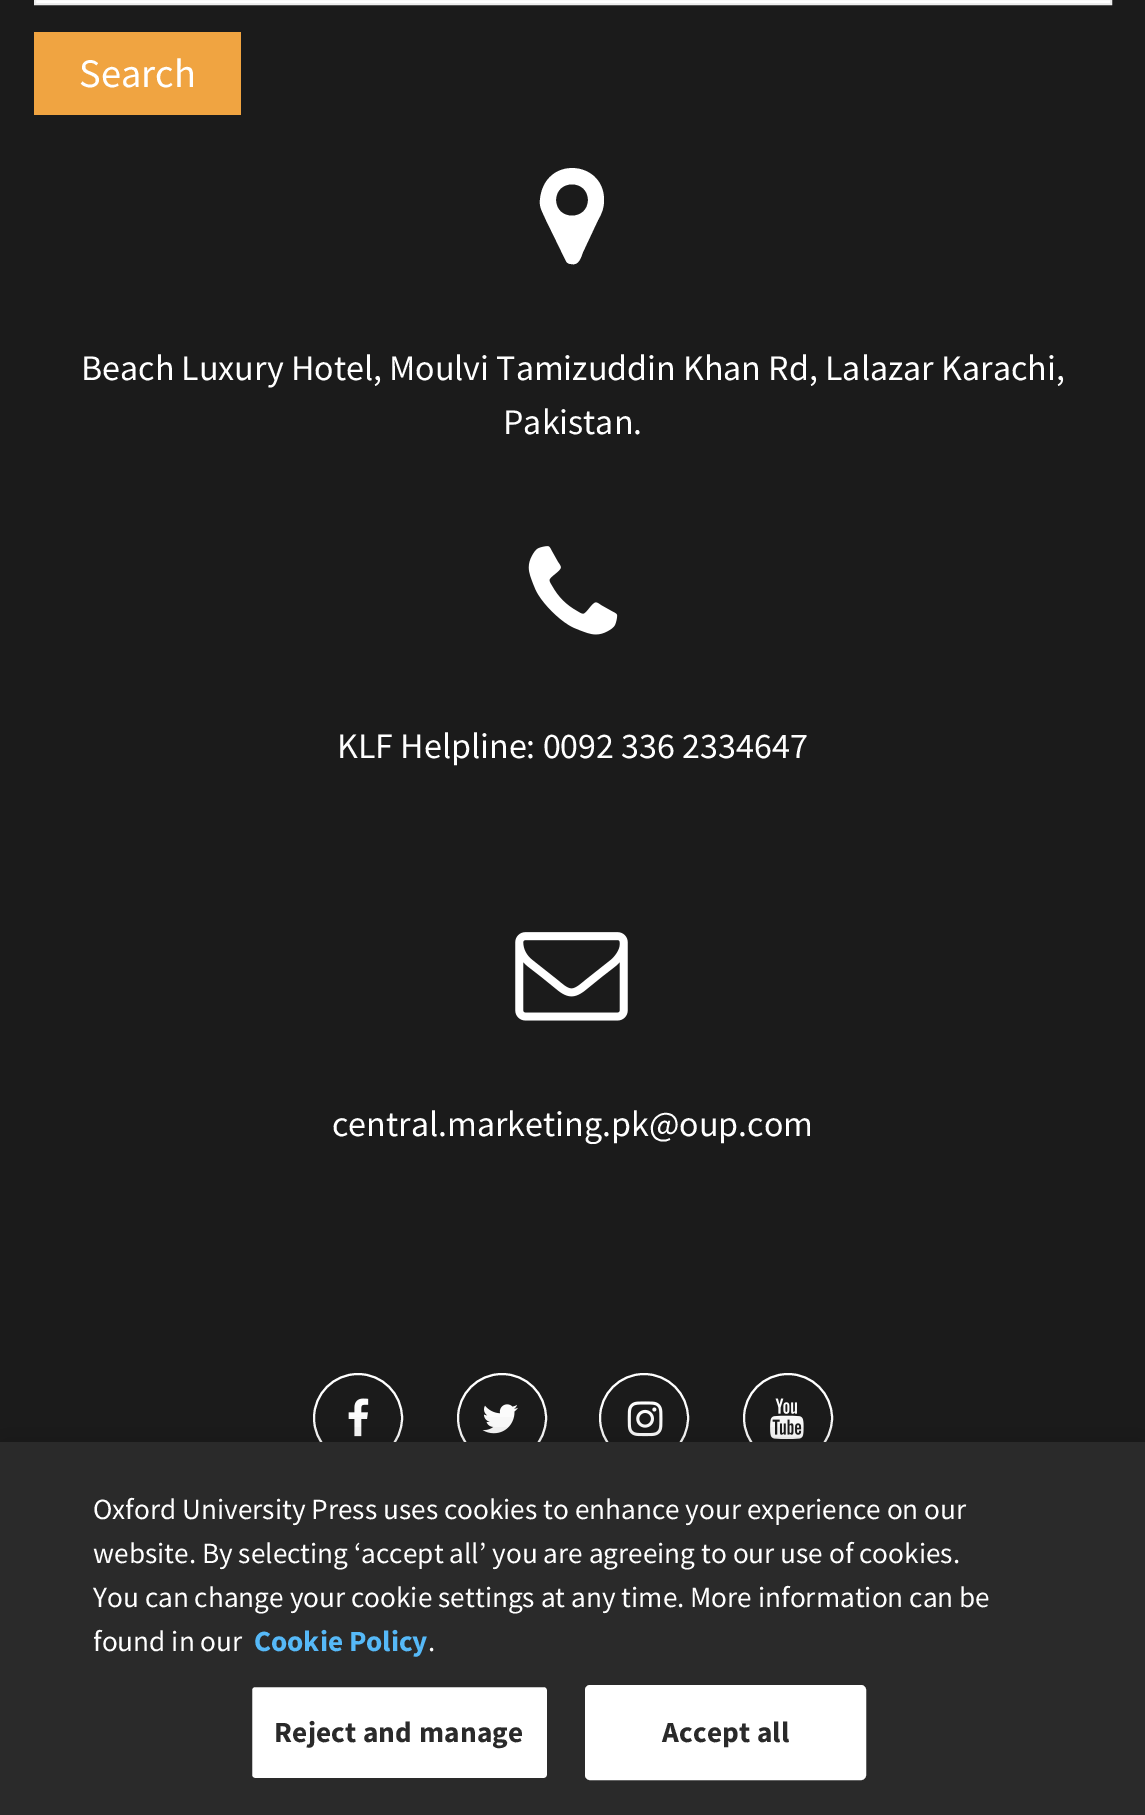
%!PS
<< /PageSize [1145 1815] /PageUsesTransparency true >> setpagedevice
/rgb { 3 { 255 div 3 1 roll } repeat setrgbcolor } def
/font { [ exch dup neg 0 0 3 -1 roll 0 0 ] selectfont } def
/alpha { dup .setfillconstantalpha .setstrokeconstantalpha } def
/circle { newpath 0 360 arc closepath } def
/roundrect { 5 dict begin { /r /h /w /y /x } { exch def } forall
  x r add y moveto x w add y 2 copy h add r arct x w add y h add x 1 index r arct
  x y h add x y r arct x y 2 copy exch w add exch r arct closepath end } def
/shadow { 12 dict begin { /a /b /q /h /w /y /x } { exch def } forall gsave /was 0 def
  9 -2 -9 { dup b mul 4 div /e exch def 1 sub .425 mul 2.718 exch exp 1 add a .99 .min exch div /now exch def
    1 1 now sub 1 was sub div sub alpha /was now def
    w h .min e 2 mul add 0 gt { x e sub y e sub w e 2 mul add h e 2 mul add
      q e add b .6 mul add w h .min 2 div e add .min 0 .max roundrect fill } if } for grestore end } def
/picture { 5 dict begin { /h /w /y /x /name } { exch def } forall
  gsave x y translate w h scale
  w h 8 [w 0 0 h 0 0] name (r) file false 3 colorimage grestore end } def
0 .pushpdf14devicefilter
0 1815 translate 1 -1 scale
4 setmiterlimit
27 27 27 rgb
0 0 1145 1815 rectfill
255 255 255 rgb
35 -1 moveto 1111 -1 lineto 1111 4 lineto 35 4 lineto closepath gsave fill grestore
237 237 237 rgb
2 setlinewidth
stroke
240 164 65 rgb
34 32 207 83 rectfill
255 255 255 rgb
588 200 moveto 588 221 556 221 556 200 curveto 556 179 588 179 588 200 curveto closepath 604 200 moveto 604 160 544 155 540 200 curveto 539 207 543 213 546 220 curveto 566 261 lineto 567 263 569 264 571 264 curveto 579 266 581 257 583 252 curveto 598 220 lineto 602 213 604 208 604 200 curveto closepath fill
(img/1.rgb) 528 546 90 89 picture
(img/2.rgb) 515 932 113 89 picture
358 1418 44 circle stroke
(img/3.rgb) 348 1398 21 39 picture
502 1418 44 circle stroke
(img/4.rgb) 482 1404 36 30 picture
644 1418 44 circle stroke
(img/5.rgb) 627 1401 36 36 picture
788 1418 44 circle stroke
(img/6.rgb) 770 1398 34 42 picture
0 0 0 rgb
0 1442 1145 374 0 20 0.2 shadow
42 42 42 rgb
0 1442 1145 373 rectfill
255 255 255 rgb
251 1686 297 93 4 roundrect gsave fill grestore
42 42 42 rgb
stroke
255 255 255 rgb
586 1686 279 93 4 roundrect gsave fill grestore
stroke
/SourceSansPro-Regular 40.5 font
79 87 moveto (Search) show
/SourceSansPro-Regular 36 font
[
  [(Beach Luxury Hotel, Moulvi Tamizuddin Khan Rd, Lalazar Karachi,) 81 380]
  [(Pakistan.) 503 434]
  [(KLF Helpline: 0092 336 2334647) 337 758]
  [(central.marketing.pk@oup.com) 332 1136]
] { aload pop moveto show } forall
/SourceSansPro-Regular 29.25 font
[
  [(Oxford University Press uses cookies to enhance your experience on our) 93 1519]
  [(website. By selecting ‘accept all’ you are agreeing to our use of cookies.) 93 1563]
  [(You can change your cookie settings at any time. More information can be) 93 1607]
  [(found in our) 93 1651]
] { aload pop moveto show } forall
/SourceSansPro-Bold 29.25 font
86 185 248 rgb
254 1651 moveto (Cookie Policy) show
/SourceSansPro-Regular 29.25 font
255 255 255 rgb
428 1651 moveto (.) show
/SourceSansPro-Bold 29.25 font
42 42 42 rgb
274 1742 moveto 0.25 0 (Reject and manage) ashow
662 1742 moveto 0.25 0 (Accept all) ashow
.poppdf14devicefilter showpage
